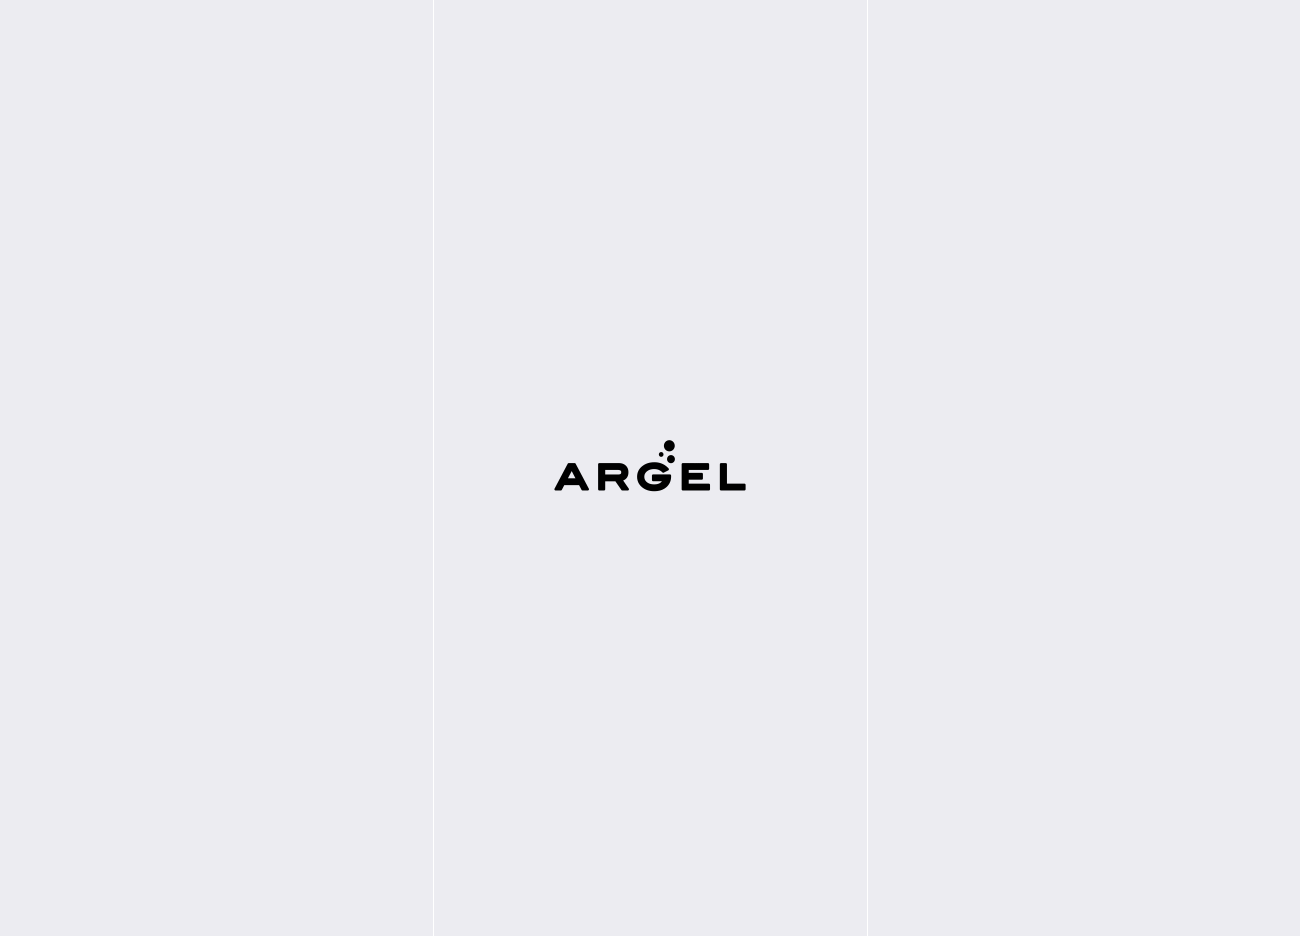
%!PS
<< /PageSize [1300 936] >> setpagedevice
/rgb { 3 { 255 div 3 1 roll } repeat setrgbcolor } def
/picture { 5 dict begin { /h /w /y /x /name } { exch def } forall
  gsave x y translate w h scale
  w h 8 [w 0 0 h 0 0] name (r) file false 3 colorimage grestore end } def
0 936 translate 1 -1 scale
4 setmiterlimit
236 236 241 rgb
0 0 1300 936 rectfill
255 255 255 rgb
433 0 1 936 rectfill
(img/1.rgb) 554 440 192 52 picture
867 0 1 936 rectfill
showpage
